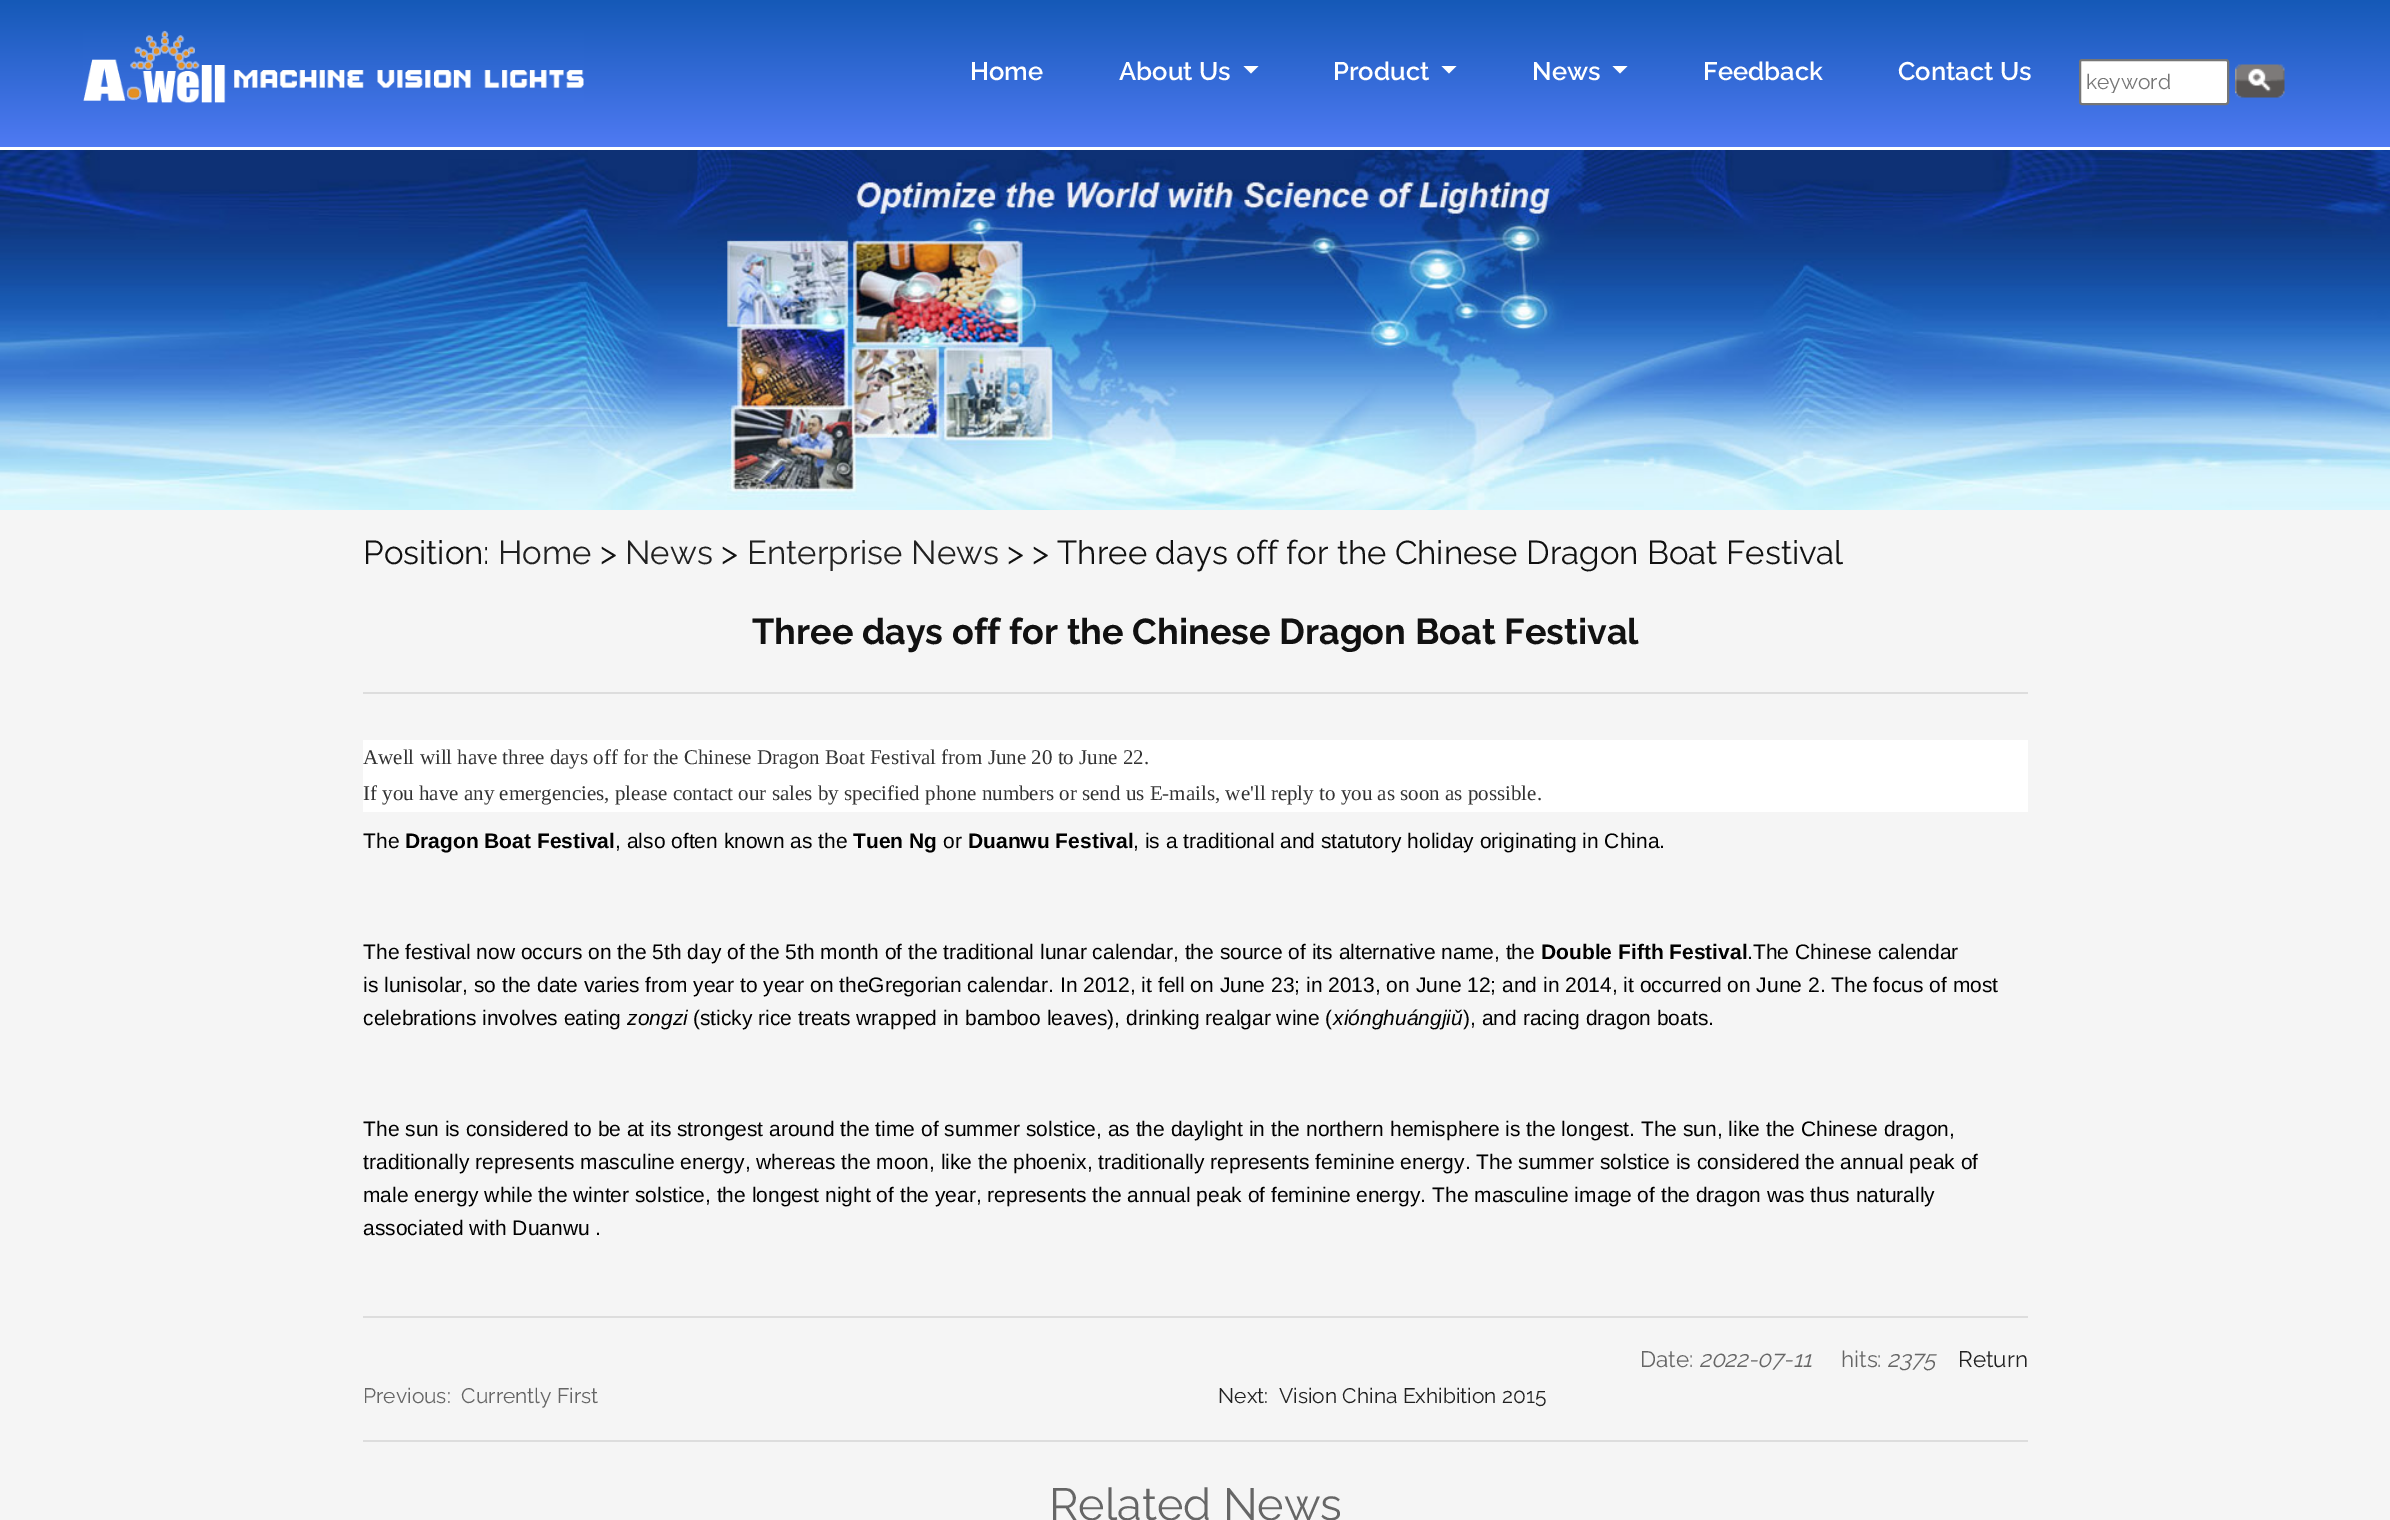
%!PS
<< /PageSize [2390 1520] >> setpagedevice
/rgb { 3 { 255 div 3 1 roll } repeat setrgbcolor } def
/font { [ exch dup neg 0 0 3 -1 roll 0 0 ] selectfont } def
/roundrect { 5 dict begin { /r /h /w /y /x } { exch def } forall
  x r add y moveto x w add y 2 copy h add r arct x w add y h add x 1 index r arct
  x y h add x y r arct x y 2 copy exch w add exch r arct closepath end } def
/picture { 5 dict begin { /h /w /y /x /name } { exch def } forall
  gsave x y translate w h scale
  w h 8 [w 0 0 h 0 0] name (r) file false 3 colorimage grestore end } def
0 1520 translate 1 -1 scale
4 setmiterlimit
245 245 245 rgb
0 0 2390 1520 rectfill
gsave 0 0 moveto 2390 0 lineto 2390 147 lineto 0 147 lineto closepath clip newpath
<< /ShadingType 2 /ColorSpace /DeviceRGB /Coords [1196 0 1196 147] /Extend [true true] /Function << /FunctionType 2 /Domain [0 1] /C0 [0.082 0.349 0.718] /C1 [0.31 0.478 0.953] /N 1 >> >> shfill grestore
255 255 255 rgb
0 147 2390 3 rectfill
(img/1.rgb) 83 30 501 73 picture
1243.5 66 moveto 1258.5 66 lineto 1251 73.5 lineto closepath fill
1441.5 66 moveto 1456.5 66 lineto 1449 73.5 lineto closepath fill
1612.5 66 moveto 1627.5 66 lineto 1620 73.5 lineto closepath fill
2080 60 148 44 2 roundrect gsave fill grestore
118 118 118 rgb
2 setlinewidth
stroke
(img/2.rgb) 2235 64 50 34 picture
(img/3.rgb) 0 150 2390 360 picture
[
  [363 692 1665 2 221 221 221]
  [363 740 1665 72 255 255 255]
  [363 1316 1665 2 221 221 221]
  [363 1440 1665 2 221 221 221]
] { aload pop rgb rectfill } forall
/Raleway-SemiBold 25.5 font
255 255 255 rgb
[
  [(Home) 970 80]
  [(About Us) 1119 80]
  [(Product) 1333 80]
  [(News) 1532 80]
  [(Feedback) 1703 80]
  [(Contact Us) 1898 80]
] { aload pop moveto show } forall
gsave
2085 69 138 24 rectclip
/Raleway-Regular 21 font
117 117 117 rgb
2086 89 moveto (keyword) show
grestore
/Raleway-Regular 33 font
17 17 17 rgb
363 564 moveto (Position:) show
33 33 33 rgb
498 564 moveto (Home) show
17 17 17 rgb
600 564 moveto (>) show
33 33 33 rgb
625 564 moveto (News) show
17 17 17 rgb
721 564 moveto (>) show
33 33 33 rgb
747 564 moveto (Enterprise News) show
17 17 17 rgb
1007 564 moveto (> > Three days off for the Chinese Dragon Boat Festival) show
/Raleway-Bold 36 font
752 644 moveto (Three days off for the Chinese Dragon Boat Festival) show
/LiberationSerif-Regular 21 font
51 51 51 rgb
363 764 moveto (Awell will have three days off for the Chinese Dragon Boat Festival from June 20 to June 22.) show
363 800 moveto (If you have any emergencies, please contact our sales by specified phone numbers or send us E-mails, we'll reply to you as soon as possible.) show
/LiberationSans-Regular 21 font
0 0 0 rgb
363 848 moveto (The) show
/LiberationSans-Bold 21 font
405 848 moveto (Dragon Boat Festival) show
/LiberationSans-Regular 21 font
615 848 moveto (, also often known as the) show
/LiberationSans-Bold 21 font
853 848 moveto (Tuen Ng) show
/LiberationSans-Regular 21 font
943 848 moveto (or) show
/LiberationSans-Bold 21 font
968 848 moveto (Duanwu Festival) show
/LiberationSans-Regular 21 font
1133 848 moveto (, is a traditional and statutory holiday originating in China.) show
363 959 moveto (The festival now occurs on the 5th day of the 5th month of the traditional lunar calendar, the source of its alternative name, the) show
/LiberationSans-Bold 21 font
1541 959 moveto (Double Fifth Festival) show
/LiberationSans-Regular 21 font
[
  [(.The Chinese calendar) 1747 959]
  [(is lunisolar, so the date varies from year to year on theGregorian calendar. In 2012, it fell on June 23; in 2013, on June 12; and in 2014, it occurred on June 2. The focus of most) 363 992]
  [(celebrations involves eating) 363 1025]
] { aload pop moveto show } forall
/LiberationSans-Italic 21 font
627 1025 moveto (zongzi) show
/LiberationSans-Regular 21 font
693 1025 moveto (\(sticky rice treats wrapped in bamboo leaves\), drinking realgar wine \() show
/LiberationSans-Italic 21 font
1333 1025 moveto (xiónghuángjiǔ) show
/LiberationSans-Regular 21 font
[
  [(\), and racing dragon boats.) 1463 1025]
  [(The sun is considered to be at its strongest around the time of summer solstice, as the daylight in the northern hemisphere is the longest. The sun, like the Chinese dragon,) 363 1136]
  [(traditionally represents masculine energy, whereas the moon, like the phoenix, traditionally represents feminine energy. The summer solstice is considered the annual peak of) 363 1169]
  [(male energy while the winter solstice, the longest night of the year, represents the annual peak of feminine energy. The masculine image of the dragon was thus naturally) 363 1202]
  [(associated with Duanwu .) 363 1235]
] { aload pop moveto show } forall
/Raleway-Regular 22.5 font
102 102 102 rgb
1640 1367 moveto (Date:) show
/Raleway-Italic 22.5 font
1699 1367 moveto (2022-07-11) show
/Raleway-Regular 22.5 font
1841 1367 moveto (hits:) show
/Raleway-Italic 22.5 font
1887 1367 moveto (2375) show
/Raleway-Regular 22.5 font
33 33 33 rgb
1958 1367 moveto (Return) show
/Raleway-Regular 21 font
102 102 102 rgb
363 1403 moveto (Previous:  Currently First) show
33 33 33 rgb
1218 1403 moveto (Next:  Vision China Exhibition 2015) show
/Raleway-Regular 45 font
102 102 102 rgb
1049 1520 moveto (Related News) show
showpage
